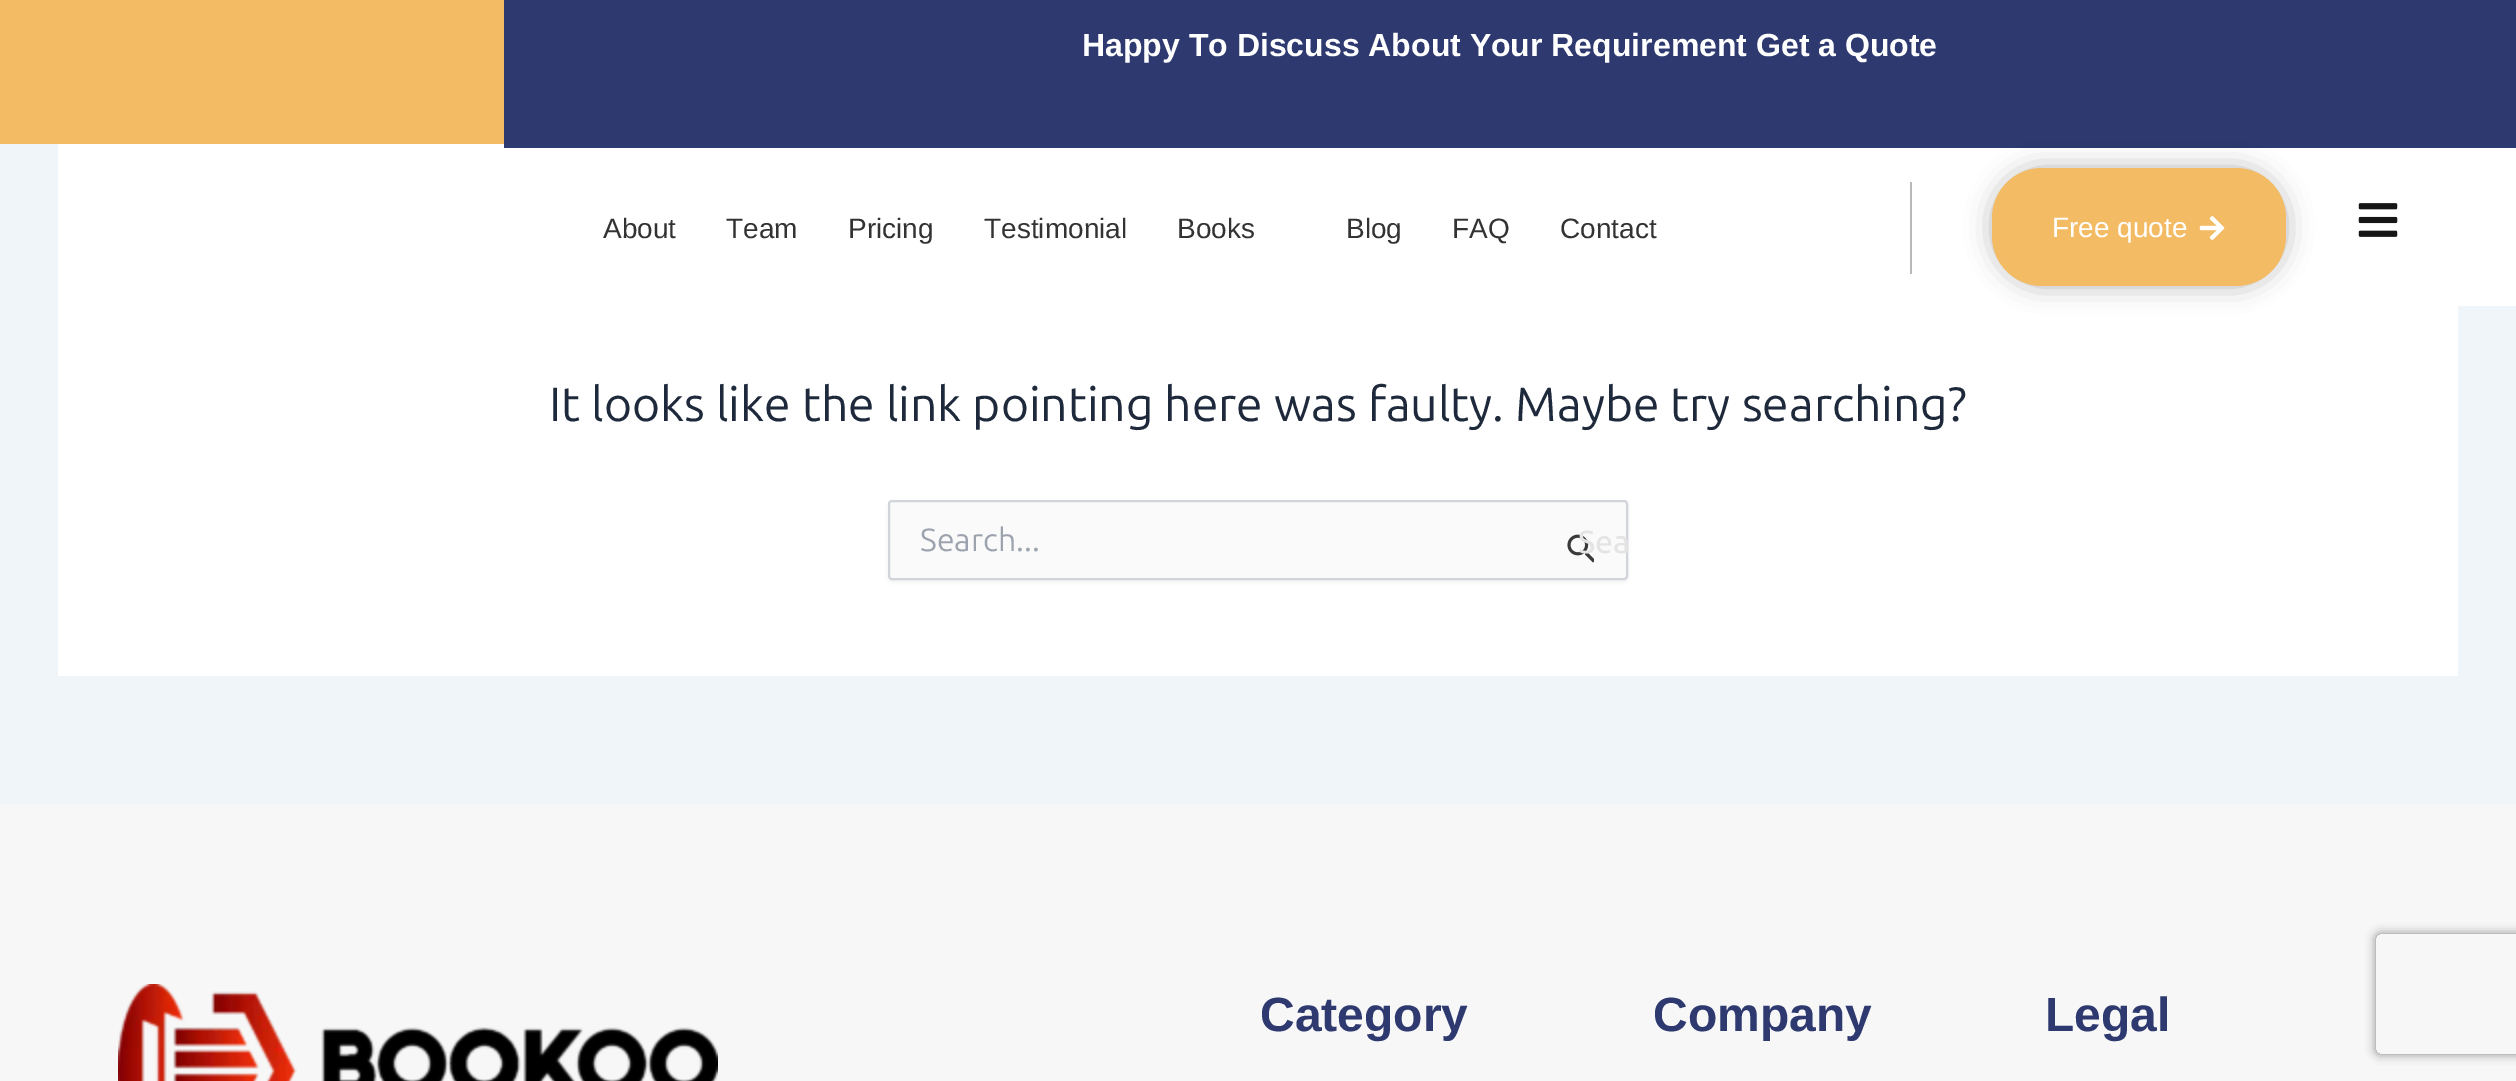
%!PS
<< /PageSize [2516 1081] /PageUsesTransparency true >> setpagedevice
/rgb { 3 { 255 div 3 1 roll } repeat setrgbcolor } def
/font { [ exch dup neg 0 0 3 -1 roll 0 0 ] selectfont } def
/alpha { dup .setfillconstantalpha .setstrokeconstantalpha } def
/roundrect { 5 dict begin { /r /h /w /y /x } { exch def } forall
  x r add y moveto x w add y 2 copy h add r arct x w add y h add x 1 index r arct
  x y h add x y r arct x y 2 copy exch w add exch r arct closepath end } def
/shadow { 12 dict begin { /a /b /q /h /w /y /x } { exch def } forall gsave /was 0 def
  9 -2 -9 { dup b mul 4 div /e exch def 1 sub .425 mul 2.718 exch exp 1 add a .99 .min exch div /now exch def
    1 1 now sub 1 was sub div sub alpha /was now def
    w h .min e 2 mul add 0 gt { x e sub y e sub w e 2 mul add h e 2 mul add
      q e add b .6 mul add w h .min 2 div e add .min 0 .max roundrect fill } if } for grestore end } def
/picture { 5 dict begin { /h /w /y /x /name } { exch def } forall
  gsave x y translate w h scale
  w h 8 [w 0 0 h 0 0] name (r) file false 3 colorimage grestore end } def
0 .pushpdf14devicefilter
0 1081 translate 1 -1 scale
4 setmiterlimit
240 245 250 rgb
0 0 2516 1081 rectfill
[
  [0 0 504 144 244 187 101]
  [58 144 2400 532 255 255 255]
  [504 0 2012 148 45 57 111]
  [2458 148 58 158 255 255 255]
  [1910 182 2 92 184 184 184]
] { aload pop rgb rectfill } forall
0 0 0 rgb
1992 168 294 118 50 13 0.29 shadow
244 187 101 rgb
1992 168 294 118 50 roundrect fill
(img/1.rgb) 2199 216 26 24 picture
(img/2.rgb) 2358 203 40 34 picture
0 0 0 rgb
888 502 740 80 4 2 0.05 shadow
250 250 250 rgb
889 501 738 78 3 roundrect gsave fill grestore
209 213 219 rgb
2 setlinewidth
stroke
(img/3.rgb) 1567 534 27 29 picture
247 247 247 rgb
0 804 2516 277 rectfill
(img/4.rgb) 118 984 600 97 picture
gsave
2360 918 moveto 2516 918 lineto 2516 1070 lineto 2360 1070 lineto closepath 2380 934 moveto 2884 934 lineto 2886 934 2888 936 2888 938 curveto 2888 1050 lineto 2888 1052 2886 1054 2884 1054 curveto 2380 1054 lineto 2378 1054 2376 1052 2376 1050 curveto 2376 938 lineto 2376 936 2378 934 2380 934 curveto closepath eoclip newpath
128 128 128 rgb
2376 934 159 120 4 5 1 shadow
grestore
/LiberationSans-Bold 32 font
255 255 255 rgb
1082 56 moveto (Happy To Discuss About Your Requirement Get a Quote) show
/LiberationSans-Regular 28 font
51 51 51 rgb
[
  [(About) 603 238]
  [(Team) 726 238]
  [(Pricing) 848 238]
  [(Testimonial) 984 238]
  [(Books) 1177 238]
  [(Blog) 1346 238]
  [(FAQ) 1452 238]
  [(Contact) 1560 238]
] { aload pop moveto show } forall
255 255 255 rgb
2052 237 moveto (Free quote) show
/Ubuntu-Regular 48 font
30 41 59 rgb
549 421 moveto (It looks like the link pointing here was faulty. Maybe try searching?) show
/Ubuntu-Regular 32 font
156 163 175 rgb
920 551 moveto (Search...) show
/Ubuntu-Medium 32 font
228 228 228 rgb
1578 553 moveto (Sea) show
/LiberationSans-Bold 48 font
45 57 111 rgb
[
  [(Category) 1260 1031]
  [(Company) 1653 1031]
  [(Legal) 2045 1031]
] { aload pop moveto show } forall
.poppdf14devicefilter showpage
